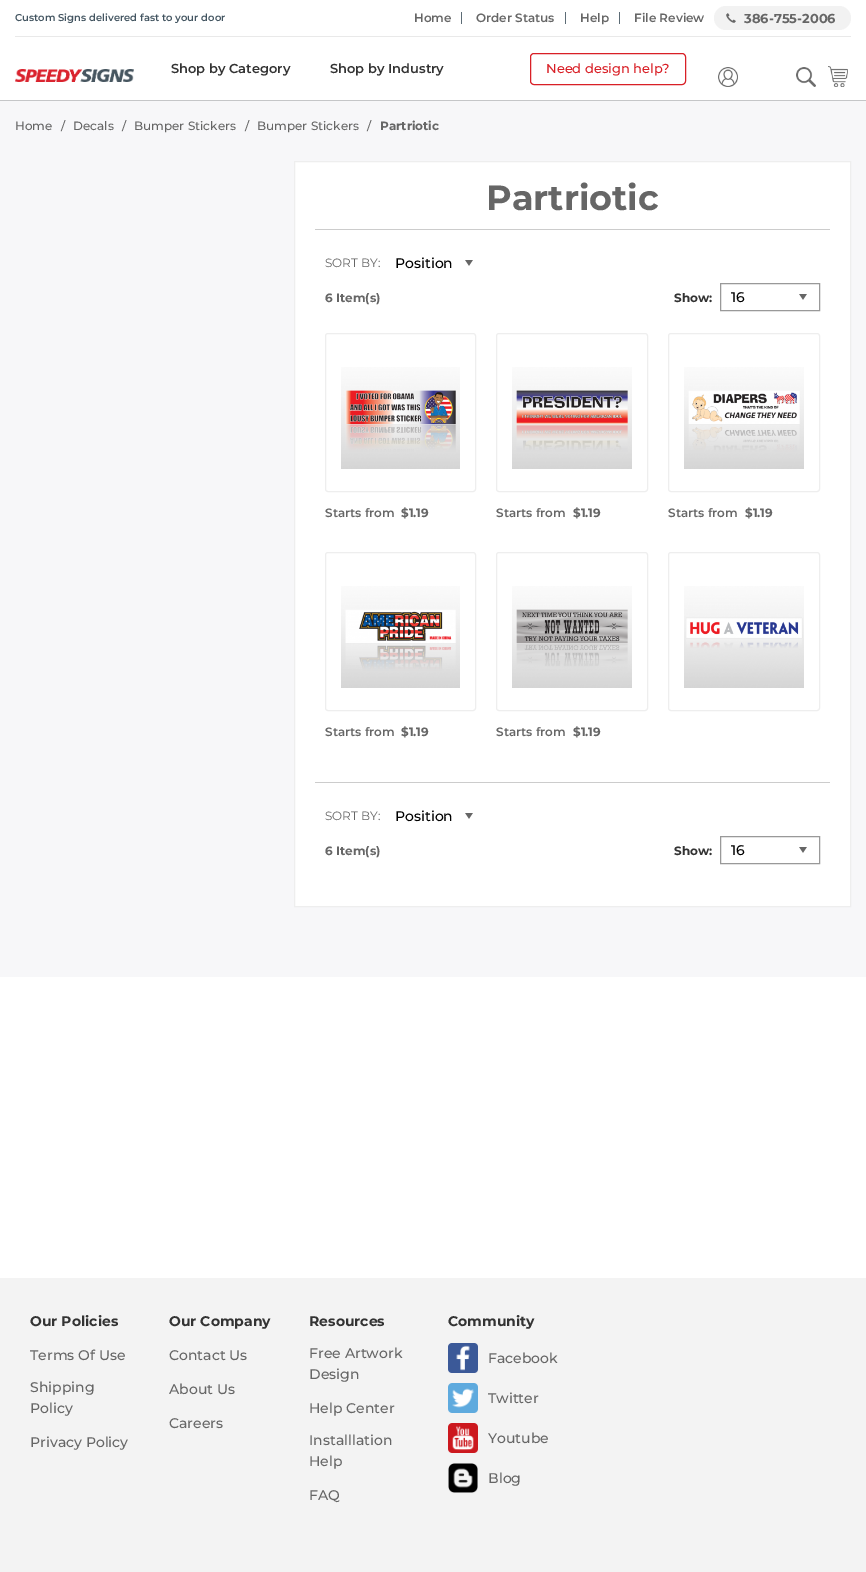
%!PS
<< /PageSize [866 1572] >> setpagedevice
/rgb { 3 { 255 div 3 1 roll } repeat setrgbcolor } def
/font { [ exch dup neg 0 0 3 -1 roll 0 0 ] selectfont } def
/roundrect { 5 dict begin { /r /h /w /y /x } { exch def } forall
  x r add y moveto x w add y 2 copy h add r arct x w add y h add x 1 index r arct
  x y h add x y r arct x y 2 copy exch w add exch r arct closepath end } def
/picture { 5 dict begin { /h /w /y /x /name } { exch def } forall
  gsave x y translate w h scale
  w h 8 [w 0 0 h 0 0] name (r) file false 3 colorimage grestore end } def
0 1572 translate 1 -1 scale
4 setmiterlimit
255 255 255 rgb
0 0 866 1572 rectfill
[
  [0 100 866 1 197 198 200]
  [15 36 836 1 233 233 233]
  [461 12 1 12 92 108 118]
  [565 12 1 12 92 108 118]
  [619 12 1 12 92 108 118]
] { aload pop rgb rectfill } forall
242 242 242 rgb
714 6 137 24 12 roundrect fill
(img/1.rgb) 726 13 10 10 picture
(img/2.rgb) 15 69 119 13 picture
217 31 38 rgb
530.5 53.5 155 31 3.5 roundrect stroke
(img/3.rgb) 718 67 20 20 picture
(img/4.rgb) 796 67 20 20 picture
(img/5.rgb) 828 66 20 21 picture
247 247 249 rgb
0 101 866 876 rectfill
255 255 255 rgb
294.5 161.5 moveto 850.5 161.5 lineto 850.5 906.5 lineto 294.5 906.5 lineto closepath gsave fill grestore
238 238 238 rgb
stroke
204 204 204 rgb
315 229 515 1 rectfill
(img/6.rgb) 465 260 8 6 picture
(img/6.rgb) 799 294 8 6 picture
153 153 153 rgb
720.5 283.5 99 27 rectstroke
238 238 238 rgb
325.5 333.5 150 158 2.5 roundrect stroke
(img/7.rgb) 341 367 119 102 picture
496.5 333.5 151 158 2.5 roundrect stroke
(img/8.rgb) 512 367 120 102 picture
668.5 333.5 151 158 2.5 roundrect stroke
(img/9.rgb) 684 367 120 102 picture
668.5 552.5 151 158 2.5 roundrect stroke
(img/10.rgb) 684 586 120 102 picture
325.5 552.5 150 158 2.5 roundrect stroke
(img/11.rgb) 341 586 119 102 picture
496.5 552.5 151 158 2.5 roundrect stroke
(img/12.rgb) 512 586 120 102 picture
204 204 204 rgb
315 782 515 1 rectfill
(img/6.rgb) 465 813 8 6 picture
(img/6.rgb) 799 847 8 6 picture
153 153 153 rgb
720.5 836.5 99 27 rectstroke
243 243 243 rgb
0 1278 866 294 rectfill
(img/13.rgb) 448 1343 30 30 picture
(img/14.rgb) 448 1383 30 30 picture
(img/15.rgb) 448 1423 30 30 picture
(img/16.rgb) 448 1463 30 30 picture
/Montserrat-SemiBold 10 font
67 85 97 rgb
15 21 moveto (Custom Signs delivered fast to your door) show
/Montserrat-SemiBold 12 font
102 102 102 rgb
[
  [(Home) 414 22]
  [(Order Status) 476 22]
  [(Help) 580 22]
  [(File Review) 634 22]
] { aload pop moveto show } forall
/Montserrat-Bold 13 font
744 23 moveto (386-755-2006) show
/Montserrat-SemiBold 13 font
51 51 51 rgb
171 73 moveto (Shop by Category) show
330 73 moveto (Shop by Industry) show
/Montserrat-Medium 13 font
217 31 38 rgb
546 73 moveto (Need design help?) show
/Montserrat-Medium 12 font
102 102 102 rgb
[
  [(Home) 15 130]
  [(/) 61 130]
  [(Decals) 73 130]
  [(/) 122 130]
  [(Bumper Stickers) 134 130]
  [(/) 245 130]
  [(Bumper Stickers) 257 130]
  [(/) 367 130]
] { aload pop moveto show } forall
/Montserrat-Bold 12 font
380 130 moveto (Partriotic) show
/Montserrat-Bold 35 font
486 210 moveto (Partriotic) show
/Montserrat-Regular 12 font
325 267 moveto (SORT BY:) show
/Montserrat-Medium 14 font
0 0 0 rgb
395 268 moveto (Position) show
/Montserrat-Bold 12 font
102 102 102 rgb
325 302 moveto (6 Item\(s\)) show
51 51 51 rgb
674 302 moveto (Show:) show
/Montserrat-Medium 14 font
0 0 0 rgb
731 302 moveto (16) show
/Montserrat-SemiBold 12 font
102 102 102 rgb
325 517 moveto (Starts from) show
/Montserrat-Bold 12 font
401 517 moveto ($1.19) show
/Montserrat-SemiBold 12 font
496 517 moveto (Starts from) show
/Montserrat-Bold 12 font
573 517 moveto ($1.19) show
/Montserrat-SemiBold 12 font
668 517 moveto (Starts from) show
/Montserrat-Bold 12 font
745 517 moveto ($1.19) show
/Montserrat-SemiBold 12 font
325 736 moveto (Starts from) show
/Montserrat-Bold 12 font
401 736 moveto ($1.19) show
/Montserrat-SemiBold 12 font
496 736 moveto (Starts from) show
/Montserrat-Bold 12 font
573 736 moveto ($1.19) show
/Montserrat-Regular 12 font
325 820 moveto (SORT BY:) show
/Montserrat-Medium 14 font
0 0 0 rgb
395 821 moveto (Position) show
/Montserrat-Bold 12 font
102 102 102 rgb
325 855 moveto (6 Item\(s\)) show
51 51 51 rgb
674 855 moveto (Show:) show
/Montserrat-Medium 14 font
0 0 0 rgb
731 855 moveto (16) show
/Montserrat-Bold 14 font
51 51 51 rgb
30 1326 moveto (Our Policies) show
/Montserrat-Medium 14 font
102 102 102 rgb
[
  [(Terms Of Use) 30 1360]
  [(Shipping) 30 1392]
  [(Policy) 30 1413]
  [(Privacy Policy) 30 1447]
] { aload pop moveto show } forall
/Montserrat-Bold 14 font
51 51 51 rgb
169 1326 moveto (Our Company) show
/Montserrat-Medium 14 font
102 102 102 rgb
[
  [(Contact Us) 169 1360]
  [(About Us) 169 1394]
  [(Careers) 169 1428]
] { aload pop moveto show } forall
/Montserrat-Bold 14 font
51 51 51 rgb
309 1326 moveto (Resources) show
/Montserrat-Medium 14 font
102 102 102 rgb
[
  [(Free Artwork) 309 1358]
  [(Design) 309 1379]
  [(Help Center) 309 1413]
  [(Installlation) 309 1445]
  [(Help) 309 1466]
  [(FAQ) 309 1500]
] { aload pop moveto show } forall
/Montserrat-Bold 14 font
51 51 51 rgb
448 1326 moveto (Community) show
/Montserrat-Medium 14 font
102 102 102 rgb
[
  [(Facebook) 488 1363]
  [(Twitter) 488 1403]
  [(Youtube) 488 1443]
  [(Blog) 488 1483]
] { aload pop moveto show } forall
showpage
